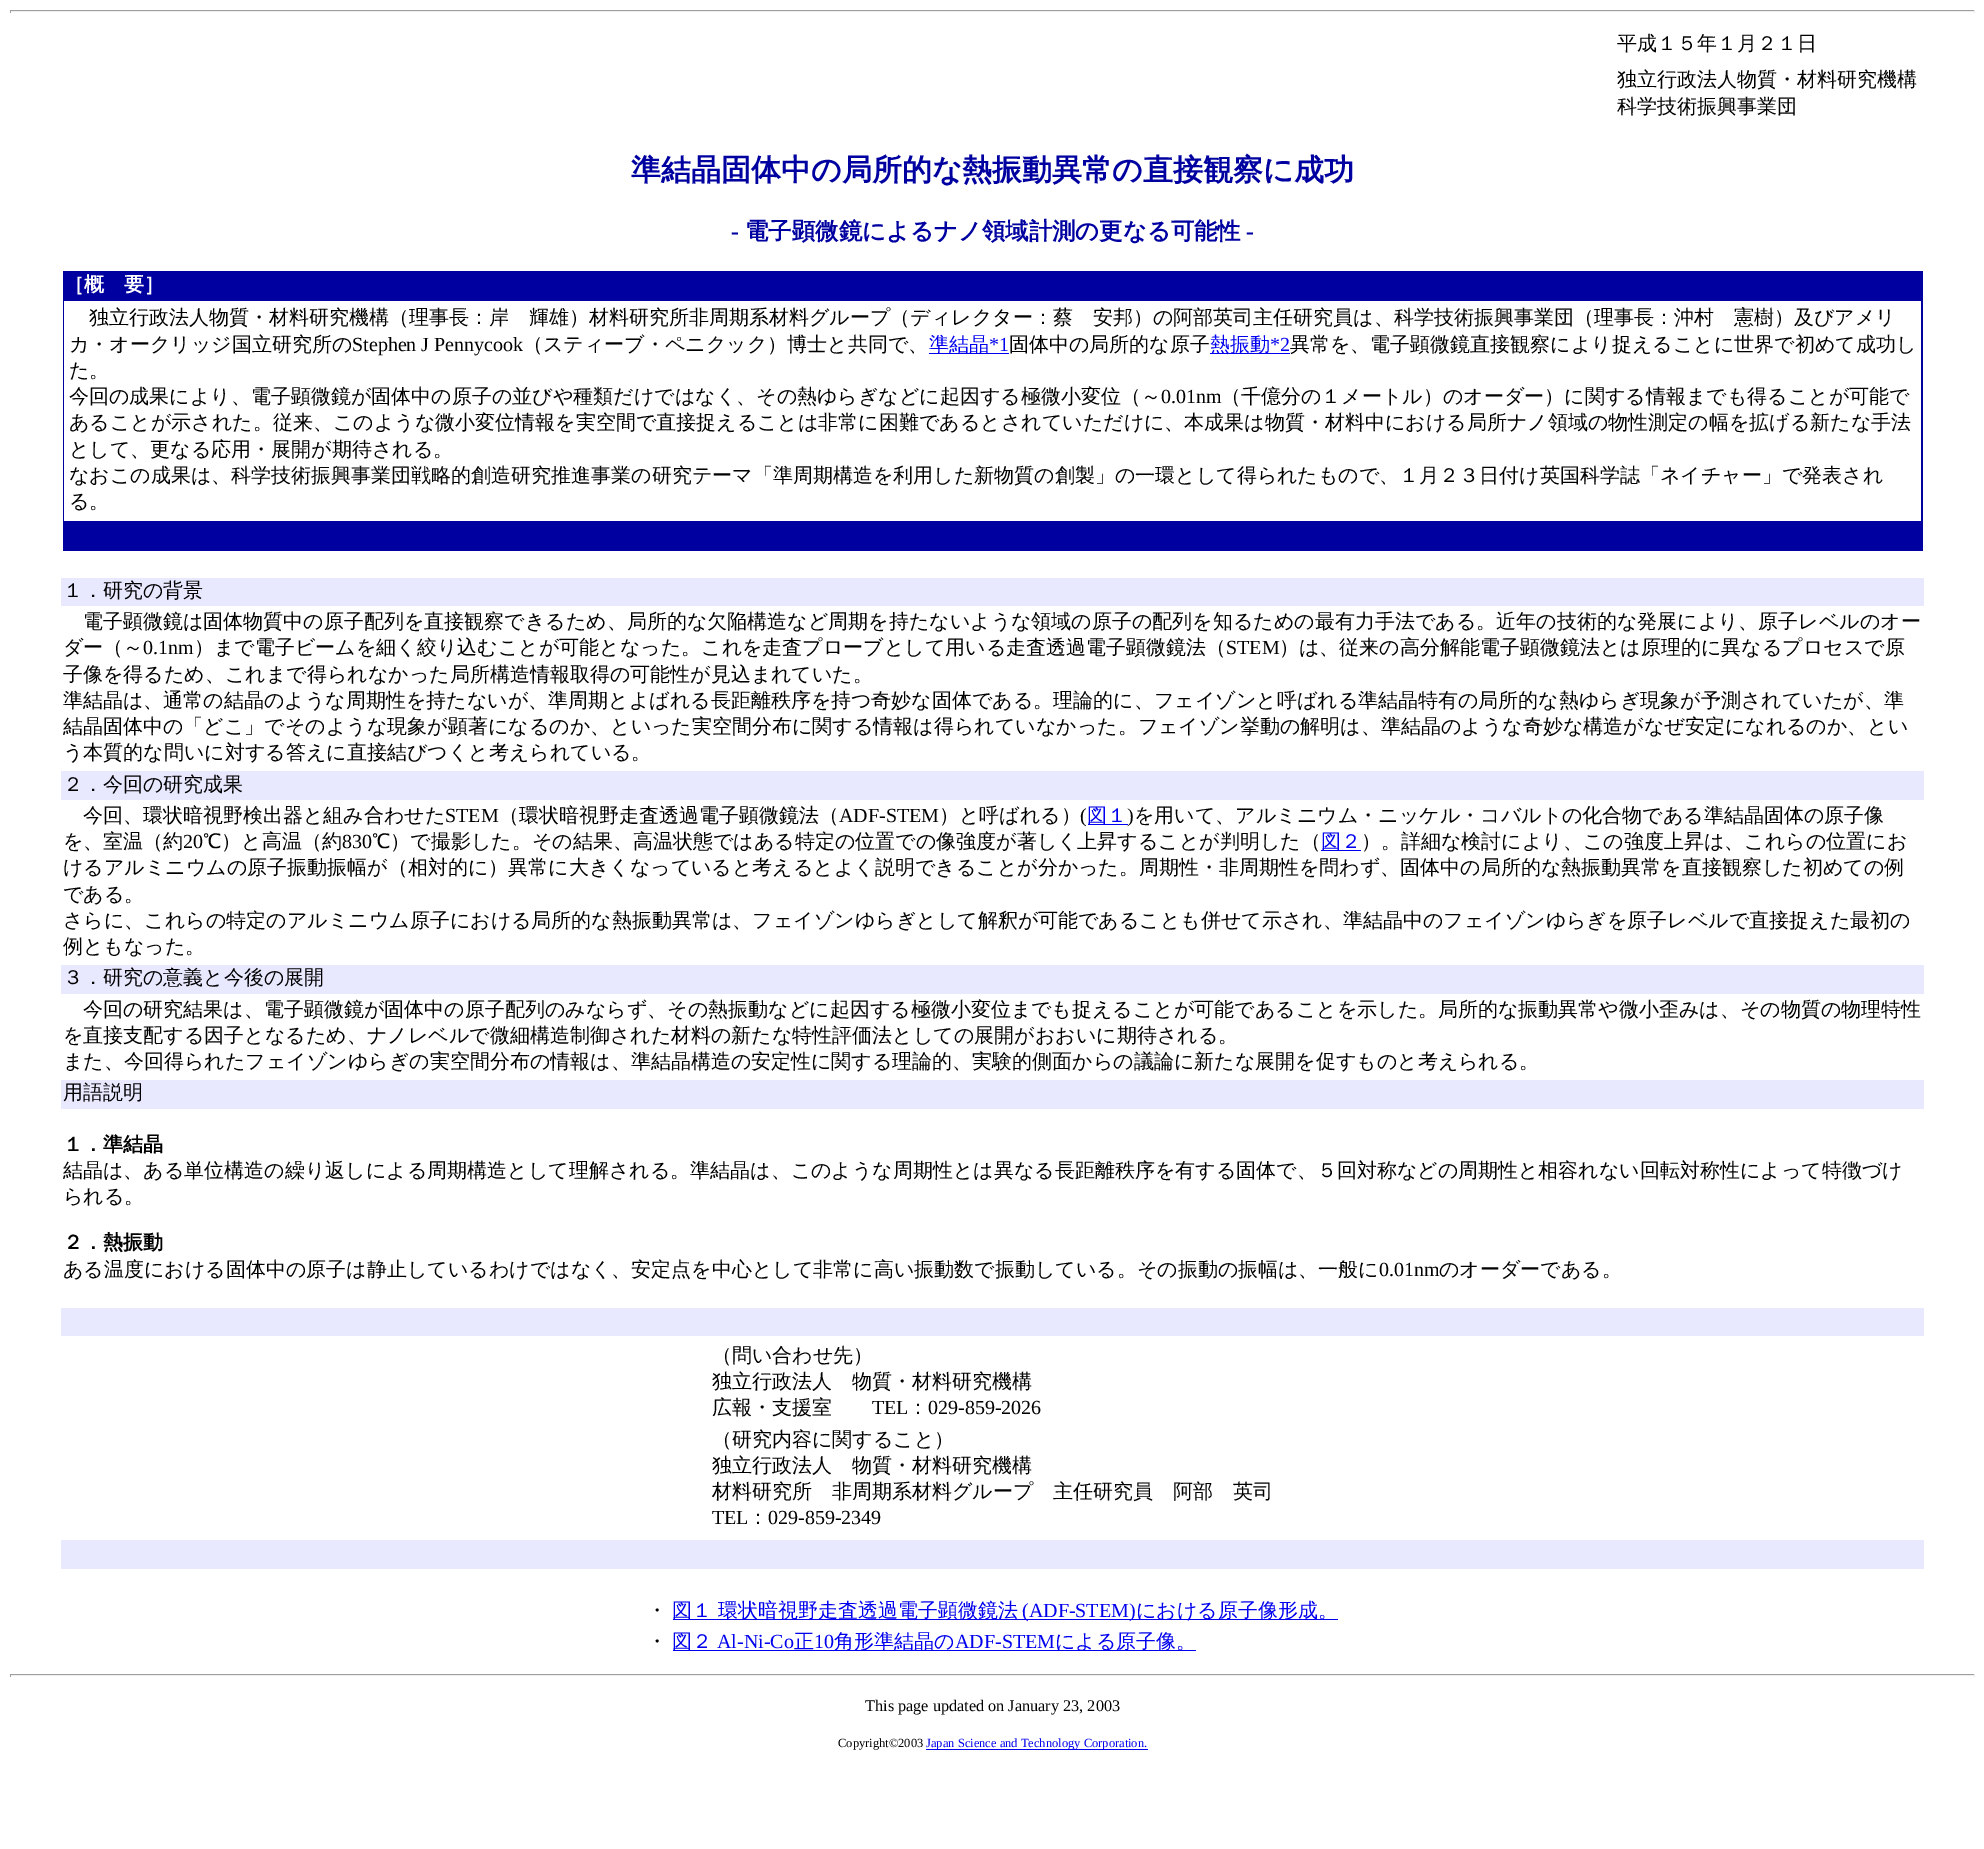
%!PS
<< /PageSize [1984 1849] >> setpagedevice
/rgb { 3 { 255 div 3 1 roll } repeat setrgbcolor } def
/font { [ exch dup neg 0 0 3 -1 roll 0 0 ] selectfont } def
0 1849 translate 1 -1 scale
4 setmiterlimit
255 255 255 rgb
0 0 1984 1849 rectfill
[
  [10 10 1965 1 159 159 159]
  [1974 10 1 3 238 238 238]
  [10 11 1965 1 238 238 238]
  [10 10 1 3 159 159 159]
  [63 271 1860 280 0 0 160]
  [64 301 1857 220 255 255 255]
  [929 353 80 1 0 0 238]
  [1210 353 80 1 0 0 238]
  [61 578 1863 28 232 232 255]
  [61 771 1863 29 232 232 255]
  [1088 824 40 1 0 0 238]
  [1321 850 40 1 0 0 238]
  [61 965 1863 29 232 232 255]
  [61 1080 1863 29 232 232 255]
  [61 1308 1863 28 232 232 255]
  [61 1540 1863 29 232 232 255]
  [673 1619 665 1 0 0 238]
  [673 1650 523 1 0 0 238]
  [10 1674 1965 1 159 159 159]
  [1974 1674 1 3 238 238 238]
  [10 1675 1965 1 238 238 238]
  [10 1674 1 3 159 159 159]
  [926 1749 222 1 0 0 238]
] { aload pop rgb rectfill } forall
/WenQuanYiZenHei-Medium 20 font
0 0 0 rgb
[
  [(平成１５年１月２１日) 1617 50]
  [(独立行政法人物質・材料研究機構) 1617 86]
  [(科学技術振興事業団) 1617 113]
] { aload pop moveto show } forall
/WenQuanYiZenHei-Bold 30 font
0 0 160 rgb
631 180 moveto (準結晶固体中の局所的な熱振動異常の直接観察に成功) show
/LiberationSerif-Bold 23.4 font
731 239 moveto (-) show
/WenQuanYiZenHei-Bold 23.4 font
745 239 moveto (電子顕微鏡によるナノ領域計測の更なる可能性) show
/LiberationSerif-Bold 23.4 font
1246 239 moveto (-) show
/WenQuanYiZenHei-Bold 20 font
255 255 255 rgb
64 291 moveto (［概　要］) show
/WenQuanYiZenHei-Medium 20 font
0 0 0 rgb
89 324 moveto (独立行政法人物質・材料研究機構（理事長：岸　輝雄）材料研究所非周期系材料グループ（ディレクター：蔡　安邦）の阿部英司主任研究員は、科学技術振興事業団（理事長：沖村　憲樹）及びアメリ) show
69 351 moveto (カ・オークリッジ国立研究所の) show
/LiberationSerif-Regular 20 font
352 351 moveto (Stephen J Pennycook) show
/WenQuanYiZenHei-Medium 20 font
523 351 moveto (（スティーブ・ペニクック）博士と共同で、) show
0 0 238 rgb
929 351 moveto (準結晶) show
/LiberationSerif-Regular 20 font
989 351 moveto (*1) show
/WenQuanYiZenHei-Medium 20 font
0 0 0 rgb
1009 351 moveto (固体中の局所的な原子) show
0 0 238 rgb
1210 351 moveto (熱振動) show
/LiberationSerif-Regular 20 font
1270 351 moveto (*2) show
/WenQuanYiZenHei-Medium 20 font
0 0 0 rgb
[
  [(異常を、電子顕微鏡直接観察により捉えることに世界で初めて成功し) 1290 351]
  [(た。) 69 377]
  [(今回の成果により、電子顕微鏡が固体中の原子の並びや種類だけではなく、その熱ゆらぎなどに起因する極微小変位（～) 69 403]
] { aload pop moveto show } forall
/LiberationSerif-Regular 20 font
1161 403 moveto (0.01nm) show
/WenQuanYiZenHei-Medium 20 font
[
  [(（千億分の１メートル）のオーダー）に関する情報までも得ることが可能で) 1221 403]
  [(あることが示された。従来、このような微小変位情報を実空間で直接捉えることは非常に困難であるとされていただけに、本成果は物質・材料中における局所ナノ領域の物性測定の幅を拡げる新たな手法) 69 429]
  [(として、更なる応用・展開が期待される。) 69 456]
  [(なおこの成果は、科学技術振興事業団戦略的創造研究推進事業の研究テーマ「準周期構造を利用した新物質の創製」の一環として得られたもので、１月２３日付け英国科学誌「ネイチャー」で発表され) 69 482]
  [(る。) 69 508]
  [(１．研究の背景) 63 597]
  [(電子顕微鏡は固体物質中の原子配列を直接観察できるため、局所的な欠陥構造など周期を持たないような領域の原子の配列を知るための最有力手法である。近年の技術的な発展により、原子レベルのオー) 83 628]
  [(ダー（～) 63 654]
] { aload pop moveto show } forall
/LiberationSerif-Regular 20 font
143 654 moveto (0.1nm) show
/WenQuanYiZenHei-Medium 20 font
194 654 moveto (）まで電子ビームを細く絞り込むことが可能となった。これを走査プローブとして用いる走査透過電子顕微鏡法（) show
/LiberationSerif-Regular 20 font
1226 654 moveto (STEM) show
/WenQuanYiZenHei-Medium 20 font
[
  [(）は、従来の高分解能電子顕微鏡法とは原理的に異なるプロセスで原) 1279 654]
  [(子像を得るため、これまで得られなかった局所構造情報取得の可能性が見込まれていた。) 63 681]
  [(準結晶は、通常の結晶のような周期性を持たないが、準周期とよばれる長距離秩序を持つ奇妙な固体である。理論的に、フェイゾンと呼ばれる準結晶特有の局所的な熱ゆらぎ現象が予測されていたが、準) 63 707]
  [(結晶固体中の「どこ」でそのような現象が顕著になるのか、といった実空間分布に関する情報は得られていなかった。フェイゾン挙動の解明は、準結晶のような奇妙な構造がなぜ安定になれるのか、とい) 63 733]
  [(う本質的な問いに対する答えに直接結びつくと考えられている。) 63 759]
  [(２．今回の研究成果) 63 791]
  [(今回、環状暗視野検出器と組み合わせた) 83 822]
] { aload pop moveto show } forall
/LiberationSerif-Regular 20 font
445 822 moveto (STEM) show
/WenQuanYiZenHei-Medium 20 font
499 822 moveto (（環状暗視野走査透過電子顕微鏡法（) show
/LiberationSerif-Regular 20 font
839 822 moveto (ADF-STEM) show
/WenQuanYiZenHei-Medium 20 font
939 822 moveto (）と呼ばれる）) show
/LiberationSerif-Regular 20 font
1080 822 moveto (\() show
/WenQuanYiZenHei-Medium 20 font
0 0 238 rgb
1087 822 moveto (図１) show
/LiberationSerif-Regular 20 font
0 0 0 rgb
1127 822 moveto (\)) show
/WenQuanYiZenHei-Medium 20 font
1134 822 moveto (を用いて、アルミニウム・ニッケル・コバルトの化合物である準結晶固体の原子像) show
63 848 moveto (を、室温（約) show
/LiberationSerif-Regular 20 font
183 848 moveto (20) show
/WenQuanYiZenHei-Medium 20 font
203 848 moveto (℃）と高温（約) show
/LiberationSerif-Regular 20 font
342 848 moveto (830) show
/WenQuanYiZenHei-Medium 20 font
372 848 moveto (℃）で撮影した。その結果、高温状態ではある特定の位置での像強度が著しく上昇することが判明した（) show
0 0 238 rgb
1321 848 moveto (図２) show
0 0 0 rgb
[
  [(）。詳細な検討により、この強度上昇は、これらの位置にお) 1361 848]
  [(けるアルミニウムの原子振動振幅が（相対的に）異常に大きくなっていると考えるとよく説明できることが分かった。周期性・非周期性を問わず、固体中の局所的な熱振動異常を直接観察した初めての例) 63 874]
  [(である。) 63 901]
  [(さらに、これらの特定のアルミニウム原子における局所的な熱振動異常は、フェイゾンゆらぎとして解釈が可能であることも併せて示され、準結晶中のフェイゾンゆらぎを原子レベルで直接捉えた最初の) 63 927]
  [(例ともなった。) 63 953]
  [(３．研究の意義と今後の展開) 63 984]
  [(今回の研究結果は、電子顕微鏡が固体中の原子配列のみならず、その熱振動などに起因する極微小変位までも捉えることが可能であることを示した。局所的な振動異常や微小歪みは、その物質の物理特性) 83 1016]
  [(を直接支配する因子となるため、ナノレベルで微細構造制御された材料の新たな特性評価法としての展開がおおいに期待される。) 63 1042]
  [(また、今回得られたフェイゾンゆらぎの実空間分布の情報は、準結晶構造の安定性に関する理論的、実験的側面からの議論に新たな展開を促すものと考えられる。) 63 1068]
  [(用語説明) 63 1099]
] { aload pop moveto show } forall
/WenQuanYiZenHei-Bold 20 font
63 1151 moveto (１．準結晶) show
/WenQuanYiZenHei-Medium 20 font
63 1177 moveto (結晶は、ある単位構造の繰り返しによる周期構造として理解される。準結晶は、このような周期性とは異なる長距離秩序を有する固体で、５回対称などの周期性と相容れない回転対称性によって特徴づけ) show
63 1203 moveto (られる。) show
/WenQuanYiZenHei-Bold 20 font
63 1249 moveto (２．熱振動) show
/WenQuanYiZenHei-Medium 20 font
63 1276 moveto (ある温度における固体中の原子は静止しているわけではなく、安定点を中心として非常に高い振動数で振動している。その振動の振幅は、一般に) show
/LiberationSerif-Regular 20 font
1379 1276 moveto (0.01nm) show
/WenQuanYiZenHei-Medium 20 font
[
  [(のオーダーである。) 1439 1276]
  [(（問い合わせ先）) 712 1362]
  [(独立行政法人　物質・材料研究機構) 712 1388]
  [(広報・支援室) 712 1414]
] { aload pop moveto show } forall
/LiberationSerif-Regular 20 font
872 1414 moveto (TEL) show
/WenQuanYiZenHei-Medium 20 font
908 1414 moveto (：) show
/LiberationSerif-Regular 20 font
928 1414 moveto (029-859-2026) show
/WenQuanYiZenHei-Medium 20 font
[
  [(（研究内容に関すること）) 712 1446]
  [(独立行政法人　物質・材料研究機構) 712 1472]
  [(材料研究所　非周期系材料グループ　主任研究員　阿部　英司) 712 1498]
] { aload pop moveto show } forall
/LiberationSerif-Regular 20 font
712 1524 moveto (TEL) show
/WenQuanYiZenHei-Medium 20 font
748 1524 moveto (：) show
/LiberationSerif-Regular 20 font
768 1524 moveto (029-859-2349) show
/WenQuanYiZenHei-Medium 20 font
647 1617 moveto (・) show
0 0 238 rgb
672 1617 moveto (図１ 環状暗視野走査透過電子顕微鏡法) show
/LiberationSerif-Regular 20 font
1022 1617 moveto (\(ADF-STEM\)) show
/WenQuanYiZenHei-Medium 20 font
1136 1617 moveto (における原子像形成。) show
0 0 0 rgb
647 1648 moveto (・) show
0 0 238 rgb
672 1648 moveto (図２) show
/LiberationSerif-Regular 20 font
717 1648 moveto (Al-Ni-Co) show
/WenQuanYiZenHei-Medium 20 font
794 1648 moveto (正) show
/LiberationSerif-Regular 20 font
814 1648 moveto (10) show
/WenQuanYiZenHei-Medium 20 font
834 1648 moveto (角形準結晶の) show
/LiberationSerif-Regular 20 font
955 1648 moveto (ADF-STEM) show
/WenQuanYiZenHei-Medium 20 font
1055 1648 moveto (による原子像。) show
/LiberationSerif-Regular 16.25 font
0 0 0 rgb
865 1711 moveto (This page updated on January 23, 2003) show
/LiberationSerif-Regular 12.5 font
838 1747 moveto (Copyright©2003) show
0 0 238 rgb
926 1747 moveto (Japan Science and Technology Corporation.) show
showpage
